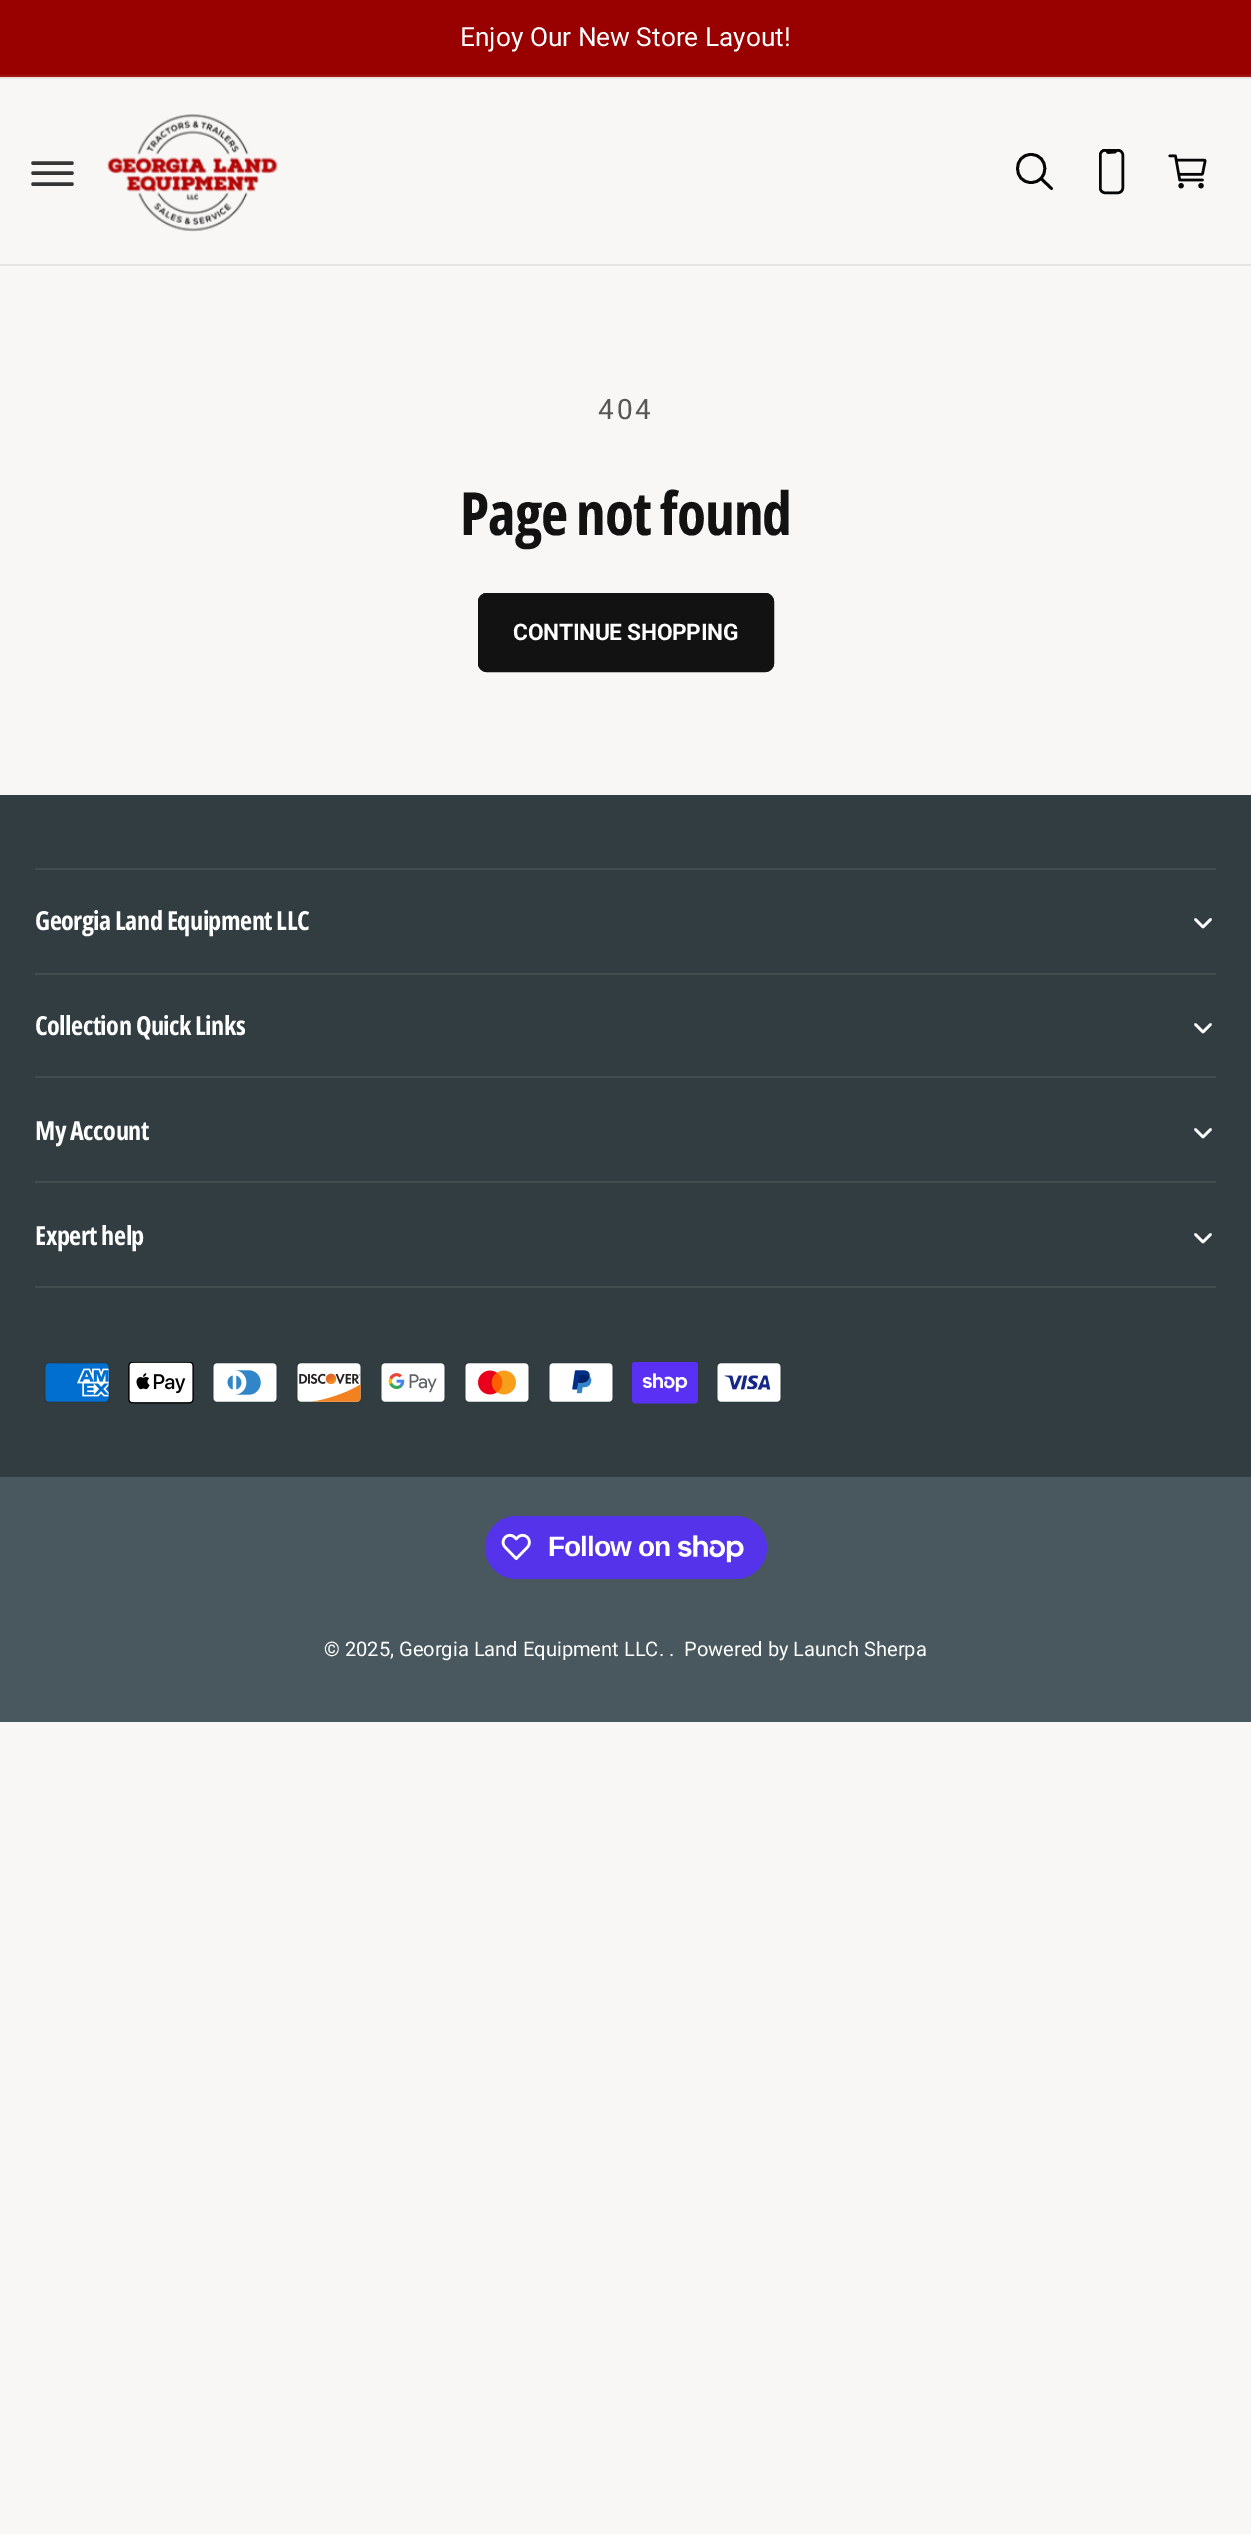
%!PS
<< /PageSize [1251 2534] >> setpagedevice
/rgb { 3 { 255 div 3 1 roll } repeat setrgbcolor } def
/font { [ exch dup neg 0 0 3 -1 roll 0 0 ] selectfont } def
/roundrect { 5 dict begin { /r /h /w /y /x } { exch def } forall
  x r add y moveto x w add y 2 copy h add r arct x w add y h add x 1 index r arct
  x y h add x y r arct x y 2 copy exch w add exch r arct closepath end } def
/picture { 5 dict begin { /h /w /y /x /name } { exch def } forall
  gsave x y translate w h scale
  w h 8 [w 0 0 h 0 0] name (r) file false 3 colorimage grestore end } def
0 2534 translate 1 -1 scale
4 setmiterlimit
249 247 246 rgb
0 0 1251 2534 rectfill
[
  [0 0 1251 75 153 0 0]
  [0 75 1251 2 161 20 20]
  [0 77 1251 2 229 228 227]
  [0 264 1251 2 229 228 227]
] { aload pop rgb rectfill } forall
54 53 53 rgb
3.5 setlinewidth
1 setlinecap
33 163 moveto 72 163 lineto 33 173 moveto 72 173 lineto 33 184 moveto 72 184 lineto stroke
(img/1.rgb) 107 114 171 118 picture
5 5 5 rgb
2.8 setlinewidth
0 setlinecap
1031 154.5 moveto 1013 154.5 1013 182.5 1031 182.5 curveto 1049.5 182.5 1049.5 154.5 1031 154.5 curveto closepath stroke
1 setlinecap
1041.5 179 moveto 1051.5 188.5 lineto stroke
2.5 setlinewidth
0 setlinecap
1100.25 150.25 22.5 42.5 4.75 roundrect stroke
gsave
1089 149 45 45 rectclip
2.7 setlinewidth
1 setlinecap
1 setlinejoin
1104 150 moveto 1106.5 150 lineto 1107.5 150.5 1107 152.5 1108.5 152.5 curveto 1114.5 152 lineto 1115.5 152 1115.5 151.5 1115.5 150.5 curveto 1116 149.5 1117.5 150 1118.5 150 curveto stroke
grestore
(img/2.rgb) 1168 154 39 35 picture
18 18 18 rgb
478 593 296 79 9 roundrect fill
2 setlinewidth
479 594 294 77 8 roundrect stroke
[
  [0 795 1251 682 50 61 65]
  [35 868 1181 2 66 77 80]
  [35 973 1181 2 66 77 80]
] { aload pop rgb rectfill } forall
255 255 255 rgb
2.5 setlinewidth
1 setlinecap
1 setlinejoin
1195.5 919.5 moveto 1203 927 lineto 1210.5 919.5 lineto stroke
66 77 80 rgb
35 1076 1181 2 rectfill
255 255 255 rgb
1195.5 1024.5 moveto 1203 1032 lineto 1210.5 1024.5 lineto stroke
66 77 80 rgb
35 1181 1181 2 rectfill
255 255 255 rgb
1195.5 1129.5 moveto 1203 1137 lineto 1210.5 1129.5 lineto stroke
66 77 80 rgb
35 1286 1181 2 rectfill
255 255 255 rgb
1195.5 1234.5 moveto 1203 1242 lineto 1210.5 1234.5 lineto stroke
(img/3.rgb) 44 1362 66 41 picture
(img/4.rgb) 128 1362 66 42 picture
(img/5.rgb) 212 1362 66 41 picture
(img/6.rgb) 296 1362 66 41 picture
(img/7.rgb) 380 1362 66 41 picture
(img/8.rgb) 464 1362 66 41 picture
(img/9.rgb) 548 1362 66 41 picture
(img/10.rgb) 632 1362 66 42 picture
(img/11.rgb) 716 1362 66 41 picture
72 88 94 rgb
0 1477 1251 245 rectfill
84 51 235 rgb
485 1516 282 63 31.5 roundrect fill
(img/12.rgb) 501 1533 30 28 picture
(img/13.rgb) 678 1535 66 28 picture
/Roboto-Regular 26.25 font
255 255 255 rgb
460 46 moveto (Enjoy Our New Store Layout!) show
/Roboto-Regular 28 font
87 87 86 rgb
598 419 moveto 3 0 (404) ashow
/OpenSansCondensed-Bold 59.5 font
18 18 18 rgb
460 535 moveto -1.1 0 (Page not found) ashow
/Roboto-Bold 22.75 font
255 255 255 rgb
513 640 moveto -0.3 0 (CONTINUE SHOPPING) ashow
/OpenSansCondensed-Bold 26.25 font
35 930 moveto -0.5 0 (Georgia Land Equipment LLC) ashow
35 1035 moveto -0.5 0 (Collection Quick Links) ashow
35 1140 moveto -0.5 0 (My Account) ashow
35 1245 moveto -0.5 0 (Expert help) ashow
/LiberationSans-Bold 28 font
548 1556 moveto -0.9 0 (Follow on) ashow
/Roboto-Regular 20.1 font
324 1656 moveto (© 2025, Georgia Land Equipment LLC. .) show
684 1656 moveto (Powered by Launch Sherpa) show
showpage
